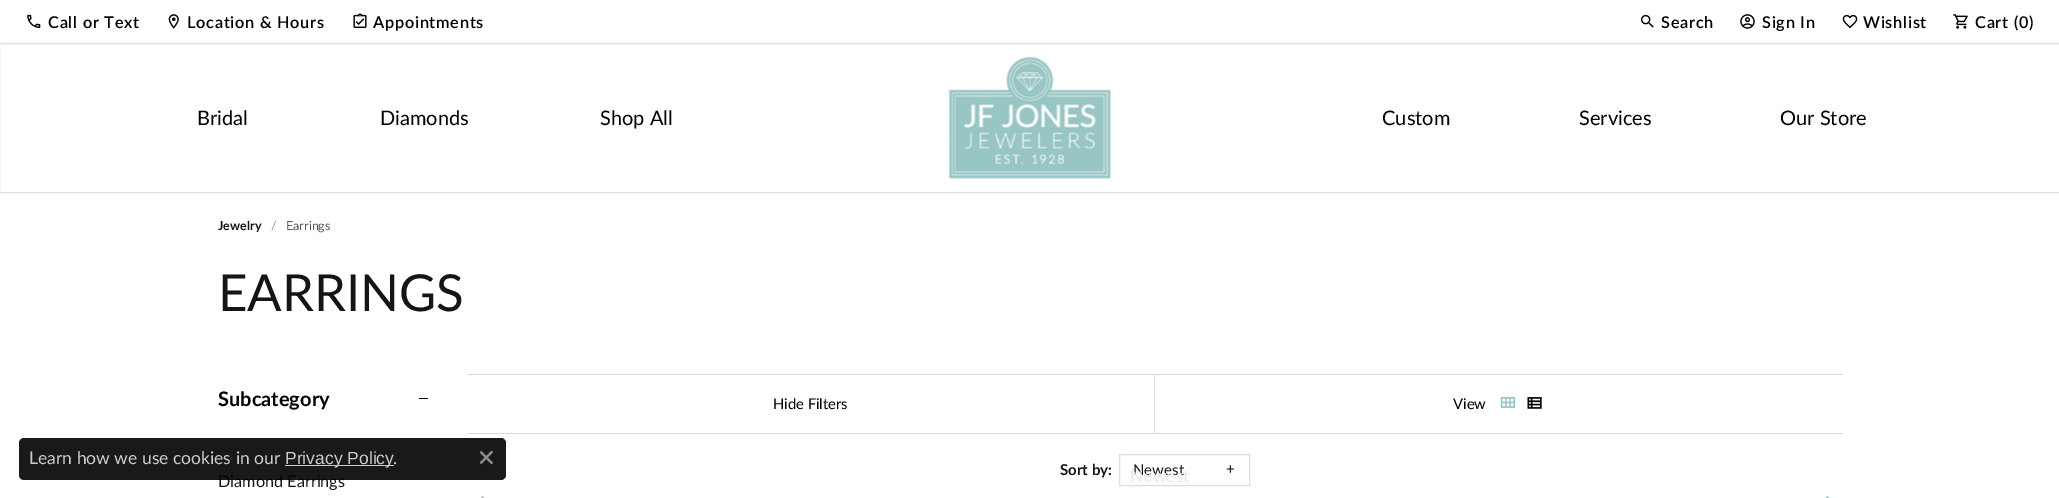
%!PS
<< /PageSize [2059 498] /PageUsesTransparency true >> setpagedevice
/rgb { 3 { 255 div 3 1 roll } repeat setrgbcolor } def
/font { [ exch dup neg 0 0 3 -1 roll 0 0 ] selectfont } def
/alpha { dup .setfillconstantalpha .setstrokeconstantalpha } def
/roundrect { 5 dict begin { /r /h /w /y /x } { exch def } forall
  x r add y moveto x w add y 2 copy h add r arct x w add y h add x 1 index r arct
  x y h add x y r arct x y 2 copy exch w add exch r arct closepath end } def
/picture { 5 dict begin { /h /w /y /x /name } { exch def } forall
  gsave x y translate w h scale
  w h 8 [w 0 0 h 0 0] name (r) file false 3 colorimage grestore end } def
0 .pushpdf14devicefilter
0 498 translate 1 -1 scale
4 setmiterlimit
255 255 255 rgb
0 0 2059 498 rectfill
(img/1.rgb) 27 14 14 14 picture
(img/2.rgb) 168 14 11 15 picture
(img/3.rgb) 353 13 14 15 picture
(img/4.rgb) 1640 14 14 14 picture
(img/5.rgb) 1740 14 15 15 picture
(img/6.rgb) 1842 14 16 15 picture
(img/7.rgb) 1953 14 15 15 picture
221 223 223 rgb
-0.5 43.5 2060 149 rectstroke
(img/8.rgb) 948 56 163 123 picture
[
  [419 398 9 1 0 0 0]
  [468 374 1375 1 217 219 219]
  [1154 375 1 58 221 223 223]
] { aload pop rgb rectfill } forall
(img/10.rgb) 1500 397 15 11 picture
(img/11.rgb) 1527 397 15 12 picture
217 219 219 rgb
468 433 1375 1 rectfill
221 223 223 rgb
1119.5 454.5 130 31 rectstroke
188 192 192 rgb
469.5 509.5 moveto 482.5 496 lineto 484.5 498 lineto 471 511 lineto closepath fill
151 198 195 rgb
1827.5 496 moveto 1840.5 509.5 lineto 1839 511 lineto 1825.5 498 lineto closepath fill
/Lato-SemiBold 16.25 font
0 0 0 rgb
48 28 moveto 0.75 0 (Call or Text) ashow
187 28 moveto 0.75 0 (Location & Hours) ashow
373 28 moveto 0.75 0 (Appointments) ashow
1661 28 moveto 0.75 0 (Search) ashow
1762 28 moveto 0.75 0 (Sign In) ashow
1863 28 moveto 0.75 0 (Wishlist) ashow
1975 28 moveto 0.75 0 (Cart \(0\)) ashow
/Lato-Regular 20 font
[
  [(Bridal) 197 125]
  [(Diamonds) 380 125]
  [(Shop All) 600 125]
  [(Custom) 1382 125]
  [(Services) 1579 125]
  [(Our Store) 1780 125]
] { aload pop moveto show } forall
/Lato-Bold 12.5 font
21 21 21 rgb
218 230 moveto (Jewelry) show
/Lato-Regular 12.5 font
141 148 147 rgb
271 230 moveto (/) show
85 85 85 rgb
286 230 moveto (Earrings) show
/Lato-Regular 51 font
21 21 21 rgb
218 311 moveto (EARRINGS) show
/Lato-Bold 20 font
0 0 0 rgb
218 406 moveto (Subcategory) show
/Lato-Regular 16.25 font
21 21 21 rgb
218 487 moveto (Diamond Earrings) show
0.9 alpha
0 0 0 rgb
19 438 487 42 5 roundrect fill
1 alpha
(img/9.rgb) 479 450 14 15 picture
/Lato-Regular 17.5 font
204 204 204 rgb
393 464 moveto (.) show
285 465 109 1 rectfill
/LiberationSans-Regular 17.5 font
285 464 moveto (Privacy Policy) show
/Lato-Regular 17.5 font
29 464 moveto (Learn how we use cookies in our) show
/Lato-Regular 14.75 font
0 0 0 rgb
773 409 moveto (Hide Filters) show
1453 409 moveto (View) show
/Lato-Bold 15 font
21 21 21 rgb
1060 475 moveto (Sort by:) show
/Lato-Regular 15 font
1133 475 moveto (Newest) show
/LiberationSans-Regular 15 font
1226 474 moveto (+) show
/Lato-Regular 17.5 font
232 232 232 rgb
1130 482 moveto (Newest) show
.poppdf14devicefilter showpage
